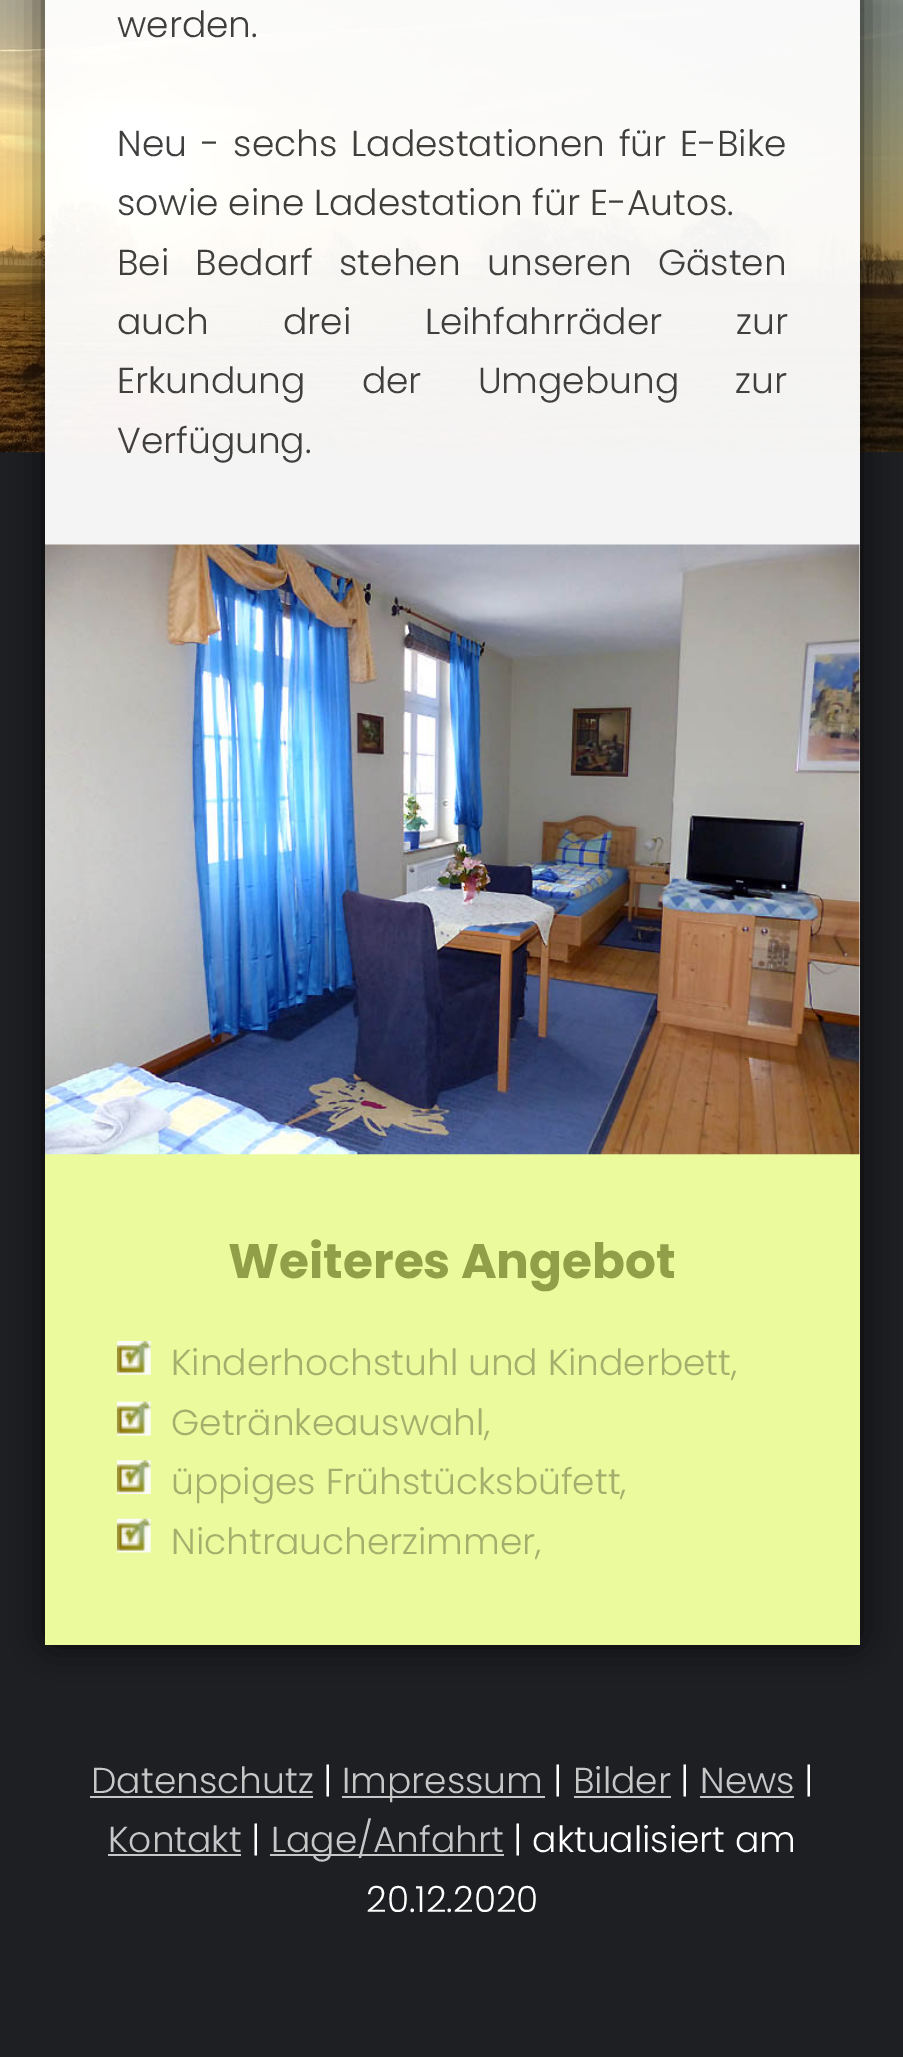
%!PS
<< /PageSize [903 2057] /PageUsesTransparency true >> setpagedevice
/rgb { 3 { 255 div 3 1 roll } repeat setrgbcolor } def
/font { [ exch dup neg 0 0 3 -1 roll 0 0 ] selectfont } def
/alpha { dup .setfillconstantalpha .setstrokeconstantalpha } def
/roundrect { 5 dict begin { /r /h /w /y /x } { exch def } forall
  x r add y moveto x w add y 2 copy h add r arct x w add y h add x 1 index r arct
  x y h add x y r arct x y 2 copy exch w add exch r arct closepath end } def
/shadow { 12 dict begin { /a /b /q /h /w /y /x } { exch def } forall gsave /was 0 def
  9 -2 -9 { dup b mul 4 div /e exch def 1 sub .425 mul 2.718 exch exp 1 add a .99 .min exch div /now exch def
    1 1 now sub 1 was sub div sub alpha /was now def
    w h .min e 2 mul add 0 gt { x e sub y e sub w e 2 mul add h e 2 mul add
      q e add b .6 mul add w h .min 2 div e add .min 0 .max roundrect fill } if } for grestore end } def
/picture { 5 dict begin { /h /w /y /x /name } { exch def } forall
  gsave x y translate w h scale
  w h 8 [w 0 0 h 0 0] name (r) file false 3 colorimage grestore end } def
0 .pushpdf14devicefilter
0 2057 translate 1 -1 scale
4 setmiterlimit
30 31 35 rgb
0 0 903 2057 rectfill
(img/1.rgb) 0 0 903 453 picture
gsave
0 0 moveto 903 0 lineto 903 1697 lineto 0 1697 lineto closepath 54 -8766 moveto 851 -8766 lineto 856 -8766 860 -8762 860 -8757 curveto 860 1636 lineto 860 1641 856 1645 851 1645 curveto 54 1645 lineto 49 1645 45 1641 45 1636 curveto 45 -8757 lineto 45 -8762 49 -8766 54 -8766 curveto closepath eoclip newpath
0 0 0 rgb
45 -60 815 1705 9 17 0.75 shadow
grestore
0.95 alpha
[
  [45 0 815 545 255 255 255]
] { aload pop rgb rectfill } forall
1 alpha
[
  [45 1154 815 491 235 250 156]
  [859 545 1 609 255 255 255]
] { aload pop rgb rectfill } forall
(img/2.rgb) 45 544 815 611 picture
(img/3.rgb) 117 1341 34 34 picture
(img/4.rgb) 117 1401 34 35 picture
(img/5.rgb) 117 1460 34 34 picture
(img/4.rgb) 117 1518 34 35 picture
[
  [90 1796 223 2 199 199 200]
  [342 1796 203 2 199 199 200]
  [574 1796 97 2 199 199 200]
  [700 1796 94 2 199 199 200]
  [108 1854 133 2 199 199 200]
  [270 1854 234 2 199 199 200]
] { aload pop rgb rectfill } forall
/Poppins-Light 36 font
63 63 62 rgb
117 37 moveto (werden.) show
117 156 moveto 4 0 32 (Neu - sechs Ladestationen für E-Bike) widthshow
117 215 moveto (sowie eine Ladestation für E-Autos.) show
117 275 moveto 16.5 0 32 (Bei Bedarf stehen unseren Gästen) widthshow
117 334 moveto 64 0 32 (auch drei Leihfahrräder zur) widthshow
117 393 moveto 46.5 0 32 (Erkundung der Umgebung zur) widthshow
117 453 moveto (Verfügung.) show
/Poppins-Bold 48.5 font
145 159 72 rgb
228 1278 moveto (Weiteres Angebot) show
/Poppins-Light 36 font
165 175 109 rgb
[
  [(Kinderhochstuhl und Kinderbett,) 171 1375]
  [(Getränkeauswahl,) 171 1435]
  [(üppiges Frühstücksbüfett,) 171 1494]
  [(Nichtraucherzimmer,) 171 1554]
] { aload pop moveto show } forall
199 199 200 rgb
91 1793 moveto (Datenschutz) show
255 255 255 rgb
323 1793 moveto (|) show
199 199 200 rgb
342 1793 moveto (Impressum) show
255 255 255 rgb
553 1793 moveto (|) show
199 199 200 rgb
573 1793 moveto (Bilder) show
255 255 255 rgb
680 1793 moveto (|) show
199 199 200 rgb
700 1793 moveto (News) show
255 255 255 rgb
804 1793 moveto (|) show
199 199 200 rgb
108 1852 moveto (Kontakt) show
255 255 255 rgb
251 1852 moveto (|) show
199 199 200 rgb
271 1852 moveto (Lage/Anfahrt) show
255 255 255 rgb
513 1852 moveto (| aktualisiert am) show
366 1912 moveto (20.12.2020) show
.poppdf14devicefilter showpage
